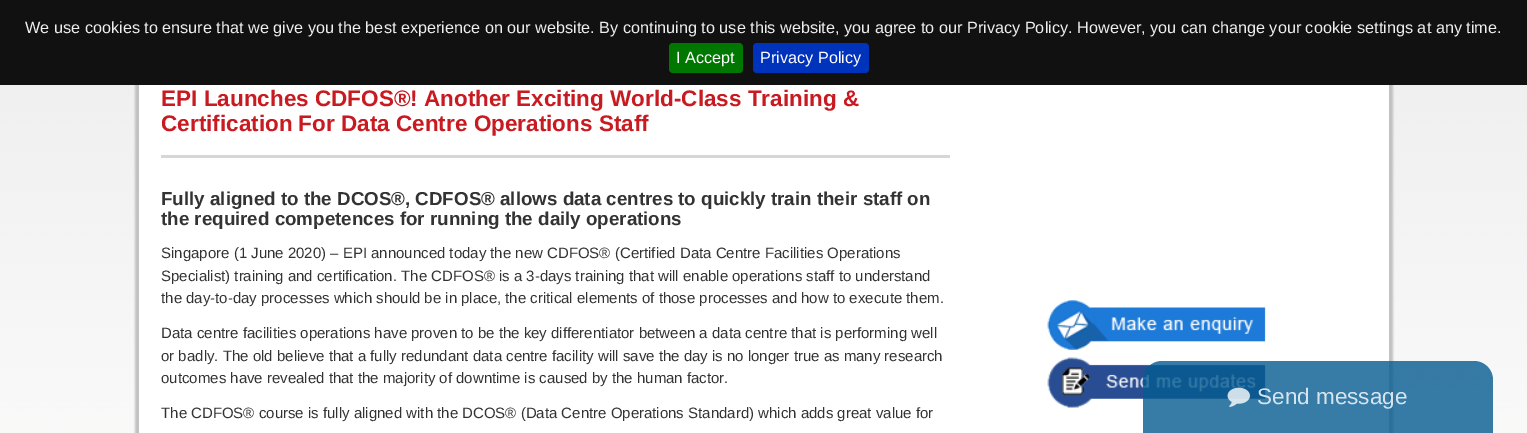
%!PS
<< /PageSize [1527 433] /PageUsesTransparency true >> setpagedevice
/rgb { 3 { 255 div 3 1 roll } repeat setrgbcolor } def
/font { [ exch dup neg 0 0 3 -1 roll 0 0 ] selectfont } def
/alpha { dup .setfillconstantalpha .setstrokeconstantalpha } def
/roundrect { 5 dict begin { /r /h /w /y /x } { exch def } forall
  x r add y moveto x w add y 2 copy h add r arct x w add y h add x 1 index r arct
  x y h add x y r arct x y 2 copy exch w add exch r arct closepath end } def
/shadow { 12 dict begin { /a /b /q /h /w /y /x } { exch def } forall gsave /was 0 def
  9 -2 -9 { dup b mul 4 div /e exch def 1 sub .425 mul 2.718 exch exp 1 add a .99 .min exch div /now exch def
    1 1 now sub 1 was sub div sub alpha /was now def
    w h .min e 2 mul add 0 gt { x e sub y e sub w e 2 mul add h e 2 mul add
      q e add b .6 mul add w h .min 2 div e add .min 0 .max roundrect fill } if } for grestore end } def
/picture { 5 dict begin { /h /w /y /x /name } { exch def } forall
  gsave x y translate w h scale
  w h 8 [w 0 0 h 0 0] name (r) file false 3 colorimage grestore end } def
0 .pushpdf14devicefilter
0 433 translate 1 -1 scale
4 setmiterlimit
255 255 255 rgb
0 0 1527 433 rectfill
(img/1.rgb) 0 85 1527 348 picture
192 192 192 rgb
135 -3 1250 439 0 1 1 shadow
143 -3 1250 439 0 1 1 shadow
17 17 17 rgb
0 0 1527 85 rectfill
0 119 0 rgb
669 43 74 30 4 roundrect fill
0 51 187 rgb
753 43 116 30 4 roundrect fill
255 255 255 rgb
139 85 1250 348 rectfill
214 214 214 rgb
161 155 789 3 rectfill
(img/2.rgb) 1047 300 219 50 picture
(img/3.rgb) 1047 357 219 51 picture
0.8 alpha
5 91 145 rgb
1162 361 moveto 1474 361 lineto 1484.5 361 1493 369.5 1493 380 curveto 1493 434 lineto 1143 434 lineto 1143 380 lineto 1143 369.5 1151.5 361 1162 361 curveto closepath fill
1 alpha
(img/4.rgb) 1227 387 23 20 picture
/LiberationSans-Regular 16.25 font
238 238 238 rgb
25 33 moveto (We use cookies to ensure that we give you the best experience on our website. By continuing to use this website, you agree to our Privacy Policy. However, you can change your cookie settings at any time.) show
255 255 255 rgb
676 63 moveto (I Accept) show
760 63 moveto (Privacy Policy) show
/LiberationSans-Bold 22.5 font
200 27 33 rgb
161 106 moveto (EPI Launches CDFOS®! Another Exciting World-Class Training &) show
161 131 moveto (Certification For Data Centre Operations Staff) show
/LiberationSans-Bold 18.75 font
51 51 51 rgb
161 205 moveto (Fully aligned to the DCOS®, CDFOS® allows data centres to quickly train their staff on) show
161 225 moveto (the required competences for running the daily operations) show
/LiberationSans-Regular 15 font
[
  [(Singapore \(1 June 2020\) – EPI announced today the new CDFOS® \(Certified Data Centre Facilities Operations) 161 258]
  [(Specialist\) training and certification. The CDFOS® is a 3-days training that will enable operations staff to understand) 161 281]
  [(the day-to-day processes which should be in place, the critical elements of those processes and how to execute them.) 161 303]
  [(Data centre facilities operations have proven to be the key differentiator between a data centre that is performing well) 161 338]
  [(or badly. The old believe that a fully redundant data centre facility will save the day is no longer true as many research) 161 361]
  [(outcomes have revealed that the majority of downtime is caused by the human factor.) 161 383]
  [(The CDFOS® course is fully aligned with the DCOS® \(Data Centre Operations Standard\) which adds great value for) 161 418]
] { aload pop moveto show } forall
/LiberationSans-Regular 22.5 font
215 228 237 rgb
1257 404 moveto (Send message) show
.poppdf14devicefilter showpage
